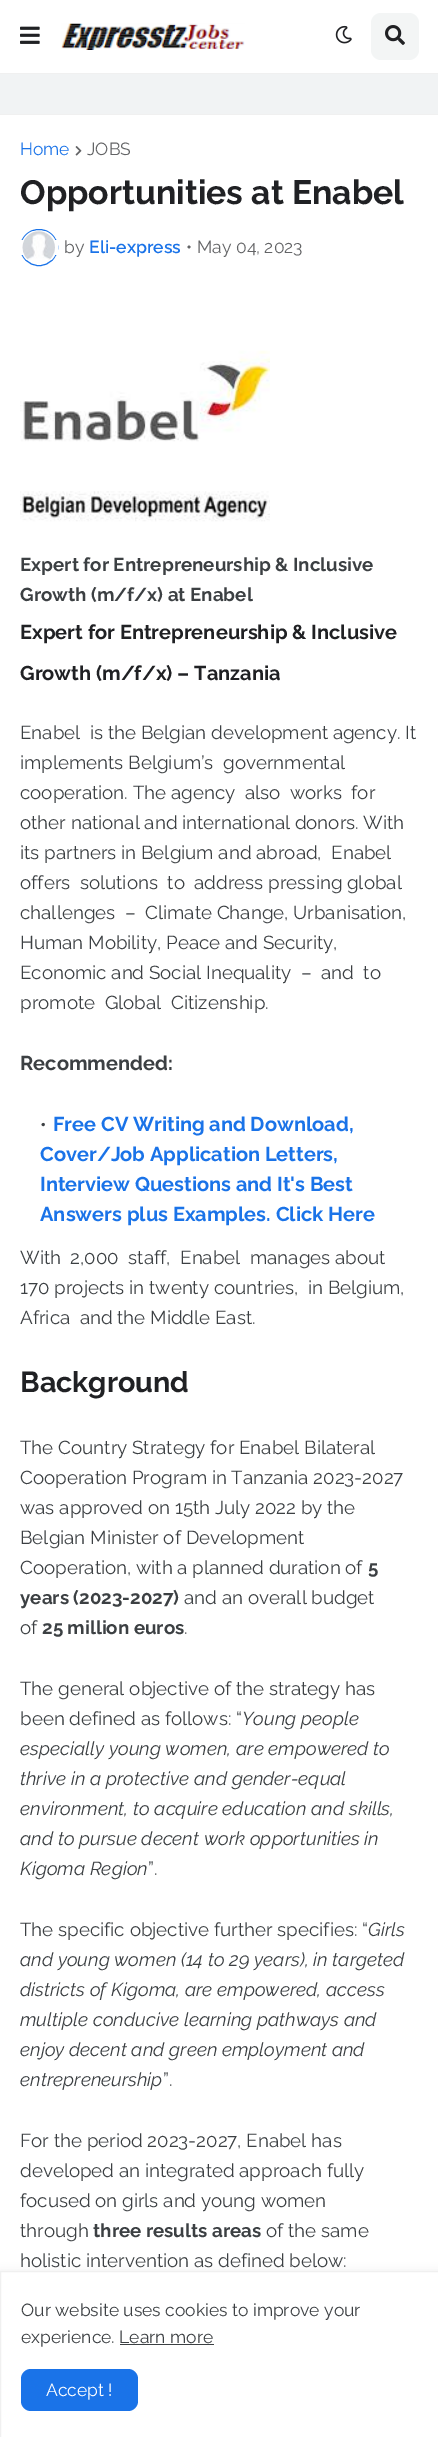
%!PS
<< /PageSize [438 2437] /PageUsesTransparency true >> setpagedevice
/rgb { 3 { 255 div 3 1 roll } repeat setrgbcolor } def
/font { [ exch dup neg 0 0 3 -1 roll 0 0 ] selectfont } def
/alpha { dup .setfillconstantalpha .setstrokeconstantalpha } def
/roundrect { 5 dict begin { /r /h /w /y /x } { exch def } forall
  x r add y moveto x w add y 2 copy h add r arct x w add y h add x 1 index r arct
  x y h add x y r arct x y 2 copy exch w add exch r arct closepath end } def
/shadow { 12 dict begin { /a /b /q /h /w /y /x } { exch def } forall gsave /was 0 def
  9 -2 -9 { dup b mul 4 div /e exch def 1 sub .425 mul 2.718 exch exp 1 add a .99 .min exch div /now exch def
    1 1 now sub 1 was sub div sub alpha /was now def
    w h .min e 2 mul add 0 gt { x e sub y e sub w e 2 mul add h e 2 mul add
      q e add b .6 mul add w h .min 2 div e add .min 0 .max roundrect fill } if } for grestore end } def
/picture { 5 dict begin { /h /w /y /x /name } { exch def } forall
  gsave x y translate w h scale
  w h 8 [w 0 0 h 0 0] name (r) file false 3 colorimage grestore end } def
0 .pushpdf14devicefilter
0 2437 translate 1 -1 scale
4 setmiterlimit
241 243 244 rgb
0 0 438 2437 rectfill
255 255 255 rgb
0 0 438 73 rectfill
240 240 240 rgb
0 73 438 1 rectfill
(img/1.rgb) 20 26 20 18 picture
(img/2.rgb) 61 23 184 27 picture
(img/3.rgb) 335 25 17 19 picture
243 245 245 rgb
371 13 48 47 10 roundrect fill
(img/4.rgb) 385 25 20 20 picture
255 255 255 rgb
0 115 438 2156 rectfill
240 240 240 rgb
0 114 438 1 rectfill
(img/5.rgb) 75 146 7 10 picture
26 115 232 rgb
20.5 229.5 37 36 18 roundrect stroke
255 255 255 rgb
20 240 38 15 rectfill
(img/6.rgb) 22 231 33 29 picture
(img/7.rgb) 20 350 250 172 picture
0 0 0 rgb
0 2273 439 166 0 5 0.1 shadow
255 255 255 rgb
0.5 2271.5 moveto 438.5 2271.5 lineto 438.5 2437.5 lineto 0.5 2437.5 lineto closepath gsave fill grestore
240 240 240 rgb
stroke
60 64 67 rgb
120 2344 94 1 rectfill
26 115 232 rgb
21 2369 117 42 10 roundrect fill
/Raleway-Regular 17.5 font
20 155 moveto (Home) show
99 100 102 rgb
87 155 moveto (JOBS) show
/Raleway-Bold 33.75 font
32 33 36 rgb
20 204 moveto (Opportunities at Enabel) show
/Raleway-Regular 17.5 font
99 100 102 rgb
64 253 moveto (by) show
/Raleway-SemiBold 17.5 font
26 115 232 rgb
89 253 moveto (Eli-express) show
/Raleway-Regular 17.5 font
99 100 102 rgb
186 253 moveto (•) show
197 253 moveto (May 04, 2023) show
/Raleway-Bold 18.75 font
60 64 67 rgb
20 571 moveto (Expert for Entrepreneurship & Inclusive) show
20 601 moveto (Growth \(m/f/x\) at Enabel) show
/Raleway-Bold 20 font
32 33 36 rgb
20 639 moveto (Expert for Entrepreneurship & Inclusive) show
20 680 moveto (Growth \(m/f/x\) – Tanzania) show
/Raleway-Regular 18.75 font
60 64 67 rgb
[
  [(Enabel  is the Belgian development agency. It) 20 739]
  [(implements Belgium’s  governmental) 20 769]
  [(cooperation. The agency  also  works  for) 20 799]
  [(other national and international donors. With) 20 829]
  [(its partners in Belgium and abroad,  Enabel) 20 859]
  [(offers  solutions  to  address pressing global) 20 889]
  [(challenges  –  Climate Change, Urbanisation,) 20 919]
  [(Human Mobility, Peace and Security,) 20 949]
  [(Economic and Social Inequality  –  and  to) 20 979]
  [(promote  Global) 20 1009]
  [(Citizenship.) 171 1009]
] { aload pop moveto show } forall
/Raleway-Bold 20 font
20 1070 moveto (Recommended:) show
/Raleway-Regular 18.75 font
40 1131 moveto (•) show
/Raleway-Bold 20 font
26 115 232 rgb
[
  [(Free CV Writing and Download,) 53 1131]
  [(Cover/Job Application Letters,) 40 1161]
  [(Interview Questions and It's Best) 40 1191]
  [(Answers plus Examples. Click Here) 40 1221]
] { aload pop moveto show } forall
/Raleway-Regular 18.75 font
60 64 67 rgb
[
  [(With  2,000  staff,  Enabel  manages about) 20 1264]
  [(170 projects in twenty countries,  in Belgium,) 20 1294]
  [(Africa  and the Middle East.) 20 1324]
] { aload pop moveto show } forall
/Raleway-Bold 28.75 font
32 33 36 rgb
20 1392 moveto (Background) show
/Raleway-Regular 18.75 font
60 64 67 rgb
[
  [(The Country Strategy for Enabel Bilateral) 20 1454]
  [(Cooperation Program in Tanzania 2023-2027) 20 1484]
  [(was approved on 15th July 2022 by the) 20 1514]
  [(Belgian Minister of Development) 20 1544]
  [(Cooperation, with a planned duration of) 20 1574]
] { aload pop moveto show } forall
/Raleway-Bold 18.75 font
368 1574 moveto (5) show
20 1604 moveto (years \(2023-2027\)) show
/Raleway-Regular 18.75 font
184 1604 moveto (and an overall budget) show
20 1634 moveto (of) show
/Raleway-Bold 18.75 font
42 1634 moveto (25 million euros) show
/Raleway-Regular 18.75 font
[
  [(.) 184 1634]
  [(The general objective of the strategy has) 20 1695]
  [(been defined as follows: “) 20 1725]
] { aload pop moveto show } forall
/Raleway-Italic 18.75 font
[
  [(Young people) 242 1725]
  [(especially young women, are empowered to) 20 1755]
  [(thrive in a protective and gender-equal) 20 1785]
  [(environment, to acquire education and skills,) 20 1815]
  [(and to pursue decent work opportunities in) 20 1845]
  [(Kigoma Region) 20 1875]
] { aload pop moveto show } forall
/Raleway-Regular 18.75 font
148 1875 moveto (”.) show
20 1936 moveto (The specific objective further specifies: “) show
/Raleway-Italic 18.75 font
[
  [(Girls) 368 1936]
  [(and young women \(14 to 29 years\), in targeted) 20 1966]
  [(districts of Kigoma, are empowered, access) 20 1996]
  [(multiple conducive learning pathways and) 20 2026]
  [(enjoy decent and green employment and) 20 2056]
  [(entrepreneurship) 20 2086]
] { aload pop moveto show } forall
/Raleway-Regular 18.75 font
[
  [(”.) 163 2086]
  [(For the period 2023-2027, Enabel has) 20 2147]
  [(developed an integrated approach fully) 20 2177]
  [(focused on girls and young women) 20 2207]
  [(through) 20 2237]
] { aload pop moveto show } forall
/Raleway-Bold 18.75 font
93 2237 moveto (three results areas) show
/Raleway-Regular 18.75 font
266 2237 moveto (of the same) show
20 2267 moveto (holistic intervention as defined below:) show
/Raleway-Regular 17.5 font
21 2316 moveto (Our website uses cookies to improve your) show
21 2343 moveto (experience. Learn more) show
255 255 255 rgb
46 2396 moveto (Accept !) show
.poppdf14devicefilter showpage
